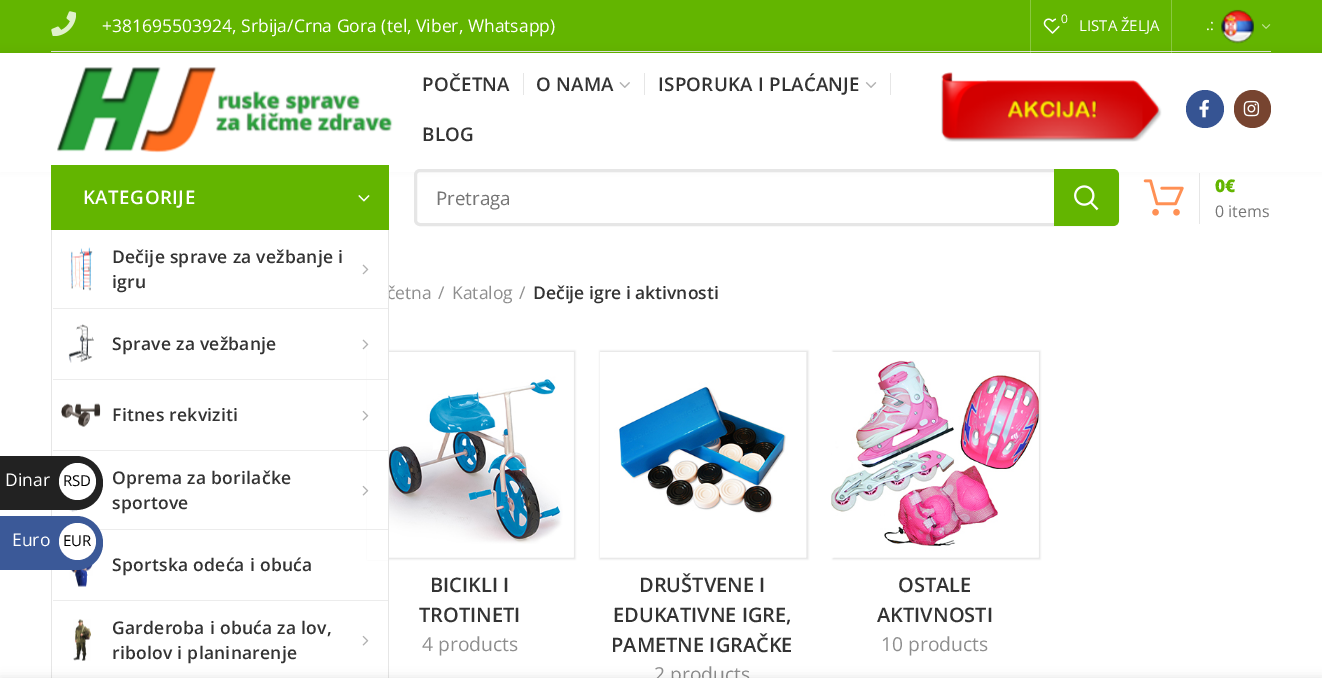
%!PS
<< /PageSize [1322 678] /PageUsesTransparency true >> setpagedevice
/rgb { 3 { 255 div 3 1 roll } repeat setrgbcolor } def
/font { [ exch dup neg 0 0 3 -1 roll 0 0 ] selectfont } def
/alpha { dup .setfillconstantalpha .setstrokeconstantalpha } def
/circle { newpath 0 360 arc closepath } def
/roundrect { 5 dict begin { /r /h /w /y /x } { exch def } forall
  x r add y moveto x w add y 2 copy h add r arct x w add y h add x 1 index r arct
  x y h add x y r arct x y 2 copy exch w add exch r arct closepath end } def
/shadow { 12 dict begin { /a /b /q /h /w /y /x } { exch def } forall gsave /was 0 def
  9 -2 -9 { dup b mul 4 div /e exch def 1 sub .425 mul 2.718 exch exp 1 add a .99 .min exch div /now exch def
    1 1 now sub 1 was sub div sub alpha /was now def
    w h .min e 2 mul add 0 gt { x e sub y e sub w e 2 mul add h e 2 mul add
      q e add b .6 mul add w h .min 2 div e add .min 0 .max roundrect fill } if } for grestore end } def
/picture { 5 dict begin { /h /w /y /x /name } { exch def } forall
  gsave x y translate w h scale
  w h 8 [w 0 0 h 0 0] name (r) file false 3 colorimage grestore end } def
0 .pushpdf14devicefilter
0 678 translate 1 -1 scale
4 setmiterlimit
255 255 255 rgb
0 0 1322 678 rectfill
230 230 230 rgb
51 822 moveto 51 230 lineto 52 230 lineto 52 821 lineto closepath fill
(img/17.rgb) 67 468 32 44 picture
34 34 34 rgb
-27 456 moveto 76 456 lineto 91 456 103 468 103 483 curveto 103 498 91 510 76 510 curveto -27 510 lineto closepath fill
255 255 255 rgb
77.5 481.5 18.5 circle fill
99 181 0 rgb
0 0 1322 53 rectfill
230 230 230 rgb
51 51 1220 1 rectfill
(img/1.rgb) 51 11 25 25 picture
0 0 0 rgb
0 54 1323 112 0 5 0.1 shadow
0.25 alpha
255 255 255 rgb
1030 0 1 53 rectfill
1 alpha
(img/2.rgb) 1043 18 18 16 picture
99 181 0 rgb
1064.5 19.5 8.5 circle fill
0.25 alpha
255 255 255 rgb
1171 0 1 53 rectfill
1 alpha
(img/3.rgb) 1221 9 33 35 picture
(img/4.rgb) 1262 24 9 5 picture
0 53 1322 119 rectfill
(img/5.rgb) 57 67 336 86 picture
230 230 230 rgb
523 73 1 22 rectfill
(img/6.rgb) 619 82 11 6 picture
644 73 1 22 rectfill
(img/7.rgb) 865 82 12 6 picture
890 73 1 22 rectfill
(img/8.rgb) 941 72 221 70 picture
54 84 147 rgb
1205 109 19 circle fill
(img/9.rgb) 1199 99 10 19 picture
119 68 48 rgb
1234 90 37 38 18.5 roundrect fill
(img/10.rgb) 1243 100 17 17 picture
99 181 0 rgb
51 165 338 65 rectfill
(img/11.rgb) 358 195 12 7 picture
(img/12.rgb) 71 247 22 44 picture
(img/13.rgb) 362 264 7 11 picture
(img/14.rgb) 68 324 26 39 picture
(img/15.rgb) 61 403 40 24 picture
236 236 236 rgb
53 600 335 1 rectfill
(img/18.rgb) 69 564 24 23 picture
(img/19.rgb) 73 619 18 42 picture
(img/16.rgb) 362 635 7 11 picture
230 230 230 rgb
3 setlinewidth
415.5 170.5 702 54 4.5 roundrect stroke
99 181 0 rgb
1054 169 moveto 1113 169 lineto 1116.5 169 1119 171.5 1119 175 curveto 1119 220 lineto 1119 223.5 1116.5 226 1113 226 curveto 1054 226 lineto closepath fill
(img/20.rgb) 1074 185 25 26 picture
(img/21.rgb) 1143 179 41 37 picture
230 230 230 rgb
1199 173 1 51 rectfill
0 0 0 rgb
368 351 207 208 0 1 0.12 shadow
(img/22.rgb) 389 352 185 206 picture
600 351 208 208 0 1 0.12 shadow
(img/23.rgb) 600 352 207 206 picture
833 351 207 208 0 1 0.12 shadow
(img/24.rgb) 831 352 208 206 picture
/OpenSans-Regular 17.5 font
255 255 255 rgb
5 486 moveto (Dinar) show
/OpenSans-Regular 15 font
0 0 0 rgb
63 486 moveto (RSD) show
/OpenSans-Regular 17.5 font
255 255 255 rgb
102 32 moveto (+381695503924, Srbija/Crna Gora \(tel, Viber, Whatsapp\)) show
/OpenSans-Regular 12 font
1061 23 moveto (0) show
/OpenSans-Regular 15 font
1079 31 moveto (LISTA ŽELJA) show
1206 30 moveto 0.25 0 (.:) ashow
/OpenSans-SemiBold 18.75 font
51 51 51 rgb
422 91 moveto 0.25 0 (POČETNA) ashow
536 91 moveto 0.25 0 (O NAMA) ashow
658 91 moveto 0.25 0 (ISPORUKA I PLAĆANJE) ashow
422 141 moveto 0.25 0 (BLOG) ashow
255 255 255 rgb
83 204 moveto 0.5 0 (KATEGORIJE) ashow
/OpenSans-SemiBold 17.5 font
51 51 51 rgb
112 263 moveto 0.25 0 (Dečije sprave za vežbanje i) ashow
112 288 moveto 0.25 0 (igru) ashow
112 350 moveto 0.25 0 (Sprave za vežbanje) ashow
112 421 moveto 0.25 0 (Fitnes rekviziti) ashow
112 484 moveto 0.25 0 (Oprema za borilačke) ashow
112 509 moveto 0.25 0 (sportove) ashow
112 571 moveto 0.25 0 (Sportska odeća i obuća) ashow
112 634 moveto 0.25 0 (Garderoba i obuća za lov,) ashow
112 659 moveto 0.25 0 (ribolov i planinarenje) ashow
/OpenSans-Regular 18.75 font
117 117 117 rgb
436 205 moveto (Pretraga) show
/OpenSans-ExtraBold 17.5 font
99 181 0 rgb
1215 192 moveto (0€) show
/OpenSans-Regular 16 font
117 117 117 rgb
1215 217 moveto (0 items) show
/OpenSans-Regular 17.5 font
142 142 142 rgb
387 299 moveto (četna) show
255 255 255 rgb
367 294 21 266 rectfill
236 236 236 rgb
99 529 289 1 rectfill
59 89 152 rgb
-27 516 moveto 76 516 lineto 91 516 103 528 103 543 curveto 103 558 91 570 76 570 curveto -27 570 lineto closepath fill
255 255 255 rgb
77.5 541.5 18.5 circle fill
/OpenSans-Regular 15 font
0 0 0 rgb
63 546 moveto (EUR) show
/OpenSans-Regular 17.5 font
255 255 255 rgb
12 546 moveto (Euro) show
(img/16.rgb) 362 485 7 11 picture
(img/16.rgb) 362 410 7 11 picture
(img/13.rgb) 362 339 7 11 picture
[
  [53 450 335 1 236 236 236]
  [53 379 335 1 236 236 236]
  [53 308 335 1 236 236 236]
] { aload pop rgb rectfill } forall
230 230 230 rgb
389 230 moveto 389 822 lineto 388 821 lineto 388 230 lineto closepath fill
142 142 142 rgb
[
  [(/) 438 299]
  [(Katalog) 452 299]
  [(/) 519 299]
] { aload pop moveto show } forall
/OpenSans-SemiBold 17.5 font
51 51 51 rgb
533 299 moveto (Dečije igre i aktivnosti) show
/OpenSans-SemiBold 20 font
430 592 moveto (BICIKLI I) show
419 622 moveto (TROTINETI) show
/OpenSans-Regular 19.25 font
142 142 142 rgb
422 651 moveto (4 products) show
/OpenSans-SemiBold 20 font
51 51 51 rgb
[
  [(DRUŠTVENE I) 639 592]
  [(EDUKATIVNE IGRE,) 613 622]
  [(PAMETNE IGRAČKE) 611 652]
] { aload pop moveto show } forall
/OpenSans-Regular 19.25 font
142 142 142 rgb
654 681 moveto (2 products) show
/OpenSans-SemiBold 20 font
51 51 51 rgb
898 592 moveto (OSTALE) show
877 622 moveto (AKTIVNOSTI) show
/OpenSans-Regular 19.25 font
142 142 142 rgb
881 651 moveto (10 products) show
0 0 0 rgb
0 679 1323 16 0 5.5 0.14 shadow
.poppdf14devicefilter showpage
